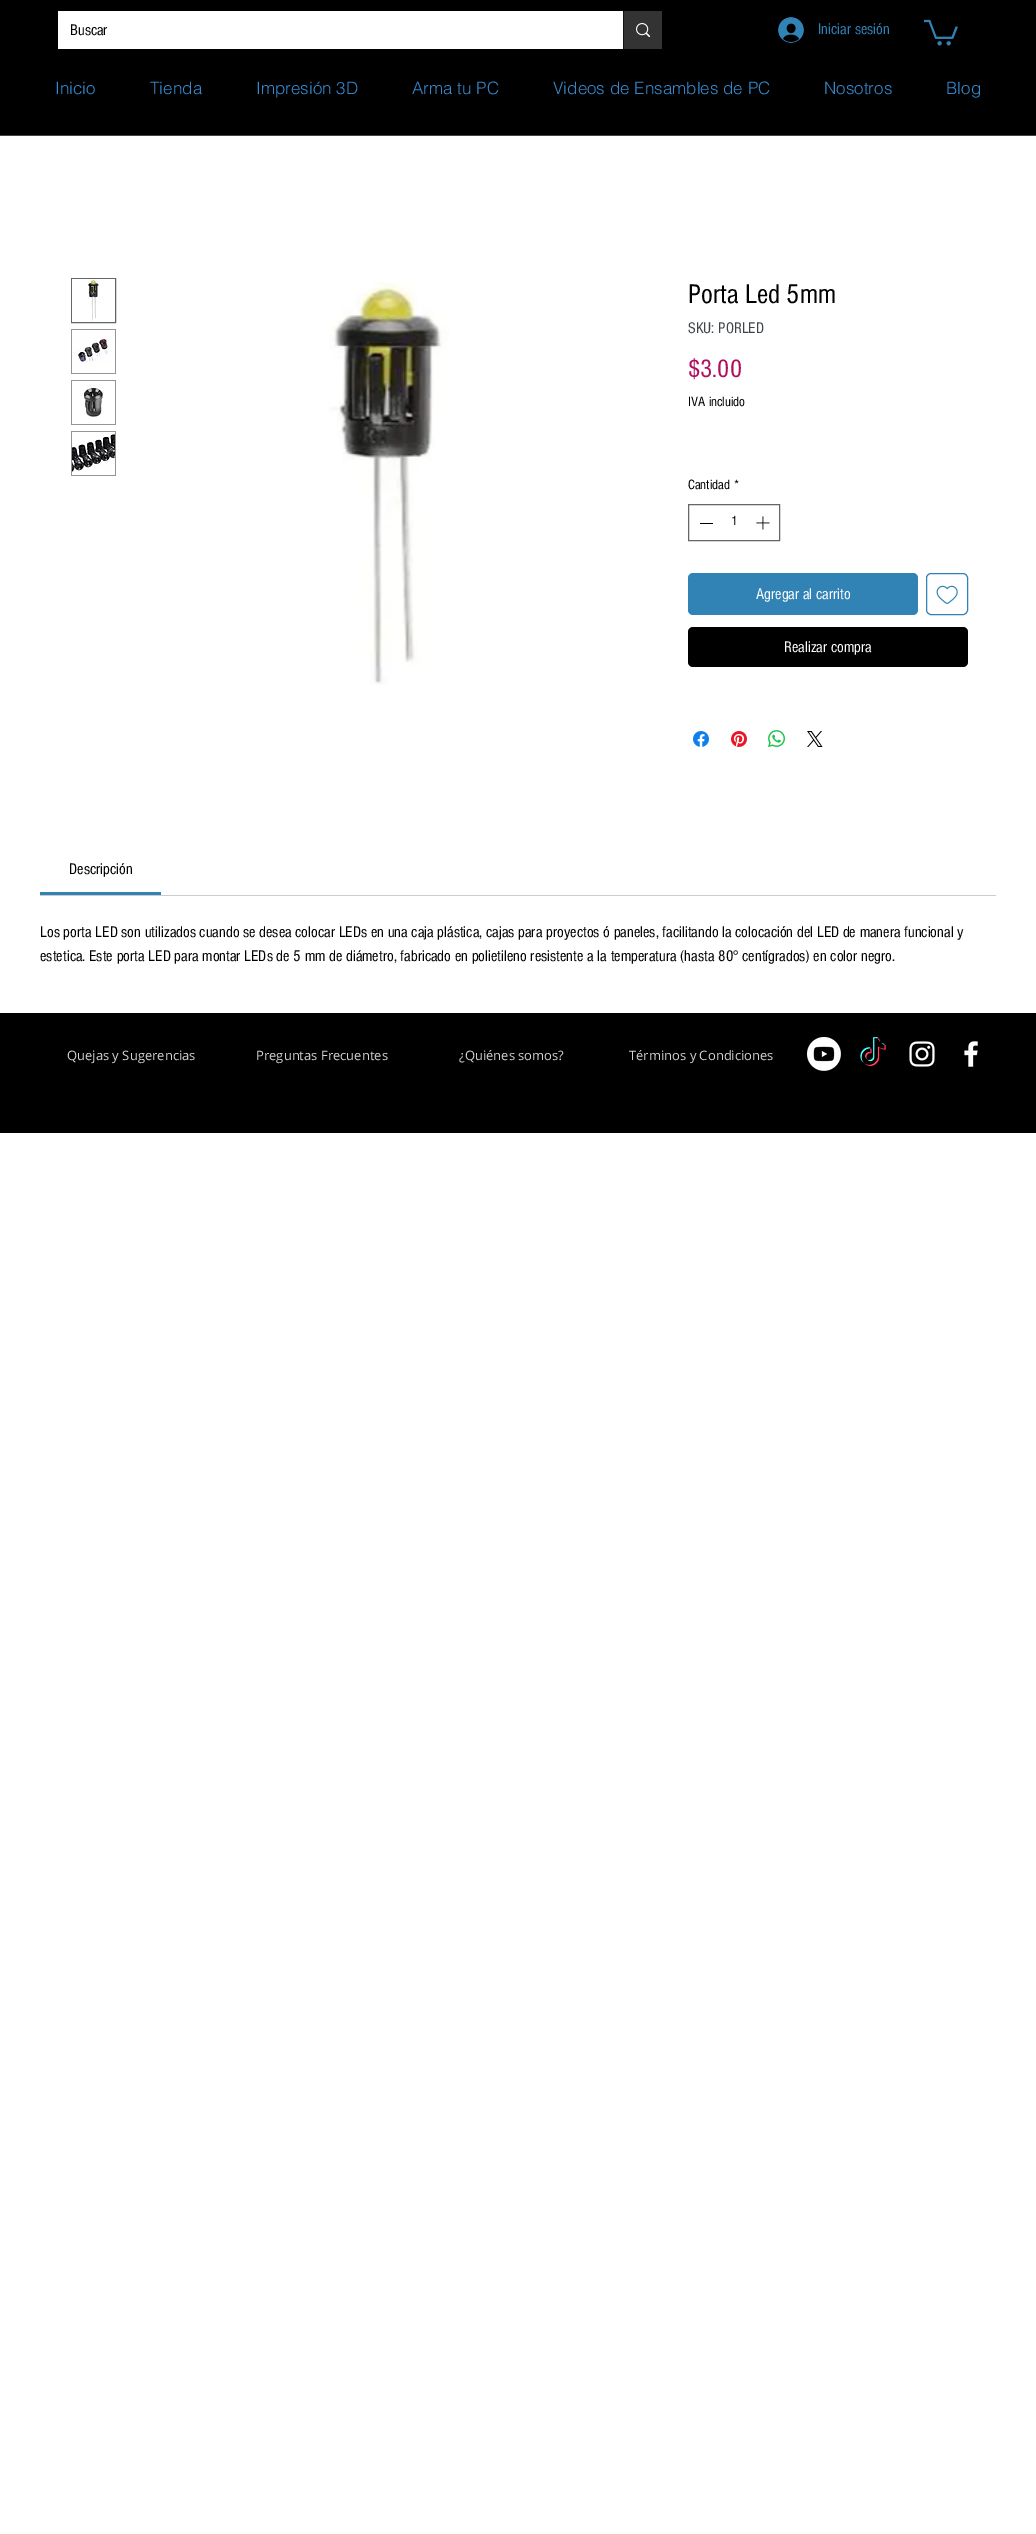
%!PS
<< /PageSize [1036 2534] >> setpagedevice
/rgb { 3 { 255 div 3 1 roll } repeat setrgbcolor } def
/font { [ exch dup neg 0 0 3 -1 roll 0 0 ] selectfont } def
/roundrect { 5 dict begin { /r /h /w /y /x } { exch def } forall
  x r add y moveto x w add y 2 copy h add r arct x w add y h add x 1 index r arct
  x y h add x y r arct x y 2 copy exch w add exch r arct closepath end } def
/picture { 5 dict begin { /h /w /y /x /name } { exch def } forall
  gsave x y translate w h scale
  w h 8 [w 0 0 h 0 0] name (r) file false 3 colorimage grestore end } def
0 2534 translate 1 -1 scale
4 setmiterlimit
255 255 255 rgb
0 0 1036 2534 rectfill
[
  [0 0 1036 135 0 0 0]
  [0 135 1036 1 60 69 71]
  [58 11 565 38 255 255 255]
  [624 11 38 38 51 51 51]
  [623 11 1 38 20 20 20]
] { aload pop rgb rectfill } forall
(img/1.rgb) 636 23 14 14 picture
(img/2.rgb) 778 17 26 26 picture
(img/3.rgb) 924 19 34 27 picture
96 103 105 rgb
71.5 278.5 44 44 rectstroke
(img/4.rgb) 72 279 43 43 picture
149 149 150 rgb
71 329 45 45 rectfill
(img/5.rgb) 72 330 43 43 picture
71 380 45 45 rectfill
(img/6.rgb) 72 381 43 43 picture
71 431 45 45 rectfill
(img/7.rgb) 72 432 43 43 picture
(img/8.rgb) 329 282 120 403 picture
102 102 102 rgb
688.5 504.5 91 36 rectstroke
0 0 0 rgb
700 523 13 1 rectfill
(img/9.rgb) 756 516 14 14 picture
49 130 181 rgb
688 573 230 42 5 roundrect fill
926.5 573.5 41 41 4.5 roundrect stroke
(img/10.rgb) 936 585 22 19 picture
0 0 0 rgb
688 627 280 40 5 roundrect fill
(img/11.rgb) 693 731 16 16 picture
(img/12.rgb) 731 731 16 16 picture
(img/13.rgb) 768 730 17 17 picture
(img/14.rgb) 807 731 16 16 picture
[
  [40 895 956 1 204 204 204]
  [40 892 121 3 49 130 181]
  [0 1013 1036 120 0 0 0]
] { aload pop rgb rectfill } forall
(img/15.rgb) 807 1037 34 34 picture
(img/16.rgb) 860 1037 26 30 picture
(img/17.rgb) 909 1041 26 26 picture
(img/18.rgb) 964 1041 14 26 picture
/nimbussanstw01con-Regular 16 font
70 35 moveto (Buscar) show
49 130 181 rgb
818 34 moveto (Iniciar sesión) show
/helvetica-Light 17 font
53 136 204 rgb
[
  [(Inicio) 55 94]
  [(Tienda) 150 94]
  [(Impresión 3D) 256 94]
  [(Arma tu PC) 412 94]
  [(Videos de Ensambles de PC) 553 94]
  [(Nosotros) 824 94]
  [(Blog) 946 94]
] { aload pop moveto show } forall
/nimbussanstw01con-Regular 28 font
0 0 0 rgb
688 303 moveto (Porta Led 5mm) show
/nimbussanstw01con-Regular 16 font
60 69 71 rgb
688 333 moveto (SKU: PORLED) show
/nimbussanstw01con-Regular 26 font
176 14 92 rgb
688 377 moveto ($3.00) show
/nimbussanstw01con-Regular 14 font
0 0 0 rgb
[
  [(IVA incluido) 688 406]
  [(Cantidad) 688 489]
  [(*) 734 489]
  [(1) 731 525]
] { aload pop moveto show } forall
/nimbussanstw01con-Regular 16 font
255 255 255 rgb
756 599 moveto (Agregar al carrito) show
784 652 moveto (Realizar compra) show
0 0 0 rgb
[
  [(Descripción) 69 874]
  [(Los porta LED son utilizados cuando se desea colocar LEDs en una caja plástica, cajas para proyectos ó paneles, facilitando la colocación del LED de manera funcional y) 40 937]
  [(estetica. Este porta LED para montar LEDs de 5 mm de diámetro, fabricado en polietileno resistente a la temperatura \(hasta 80° centígrados\) en color negro.) 40 961]
] { aload pop moveto show } forall
/OpenSans-Regular 13 font
212 212 212 rgb
[
  [(Quejas y Sugerencias) 67 1060]
  [(Preguntas Frecuentes) 256 1060]
  [(¿Quiénes somos?) 459 1060]
  [(Términos y Condiciones) 629 1060]
] { aload pop moveto show } forall
showpage
